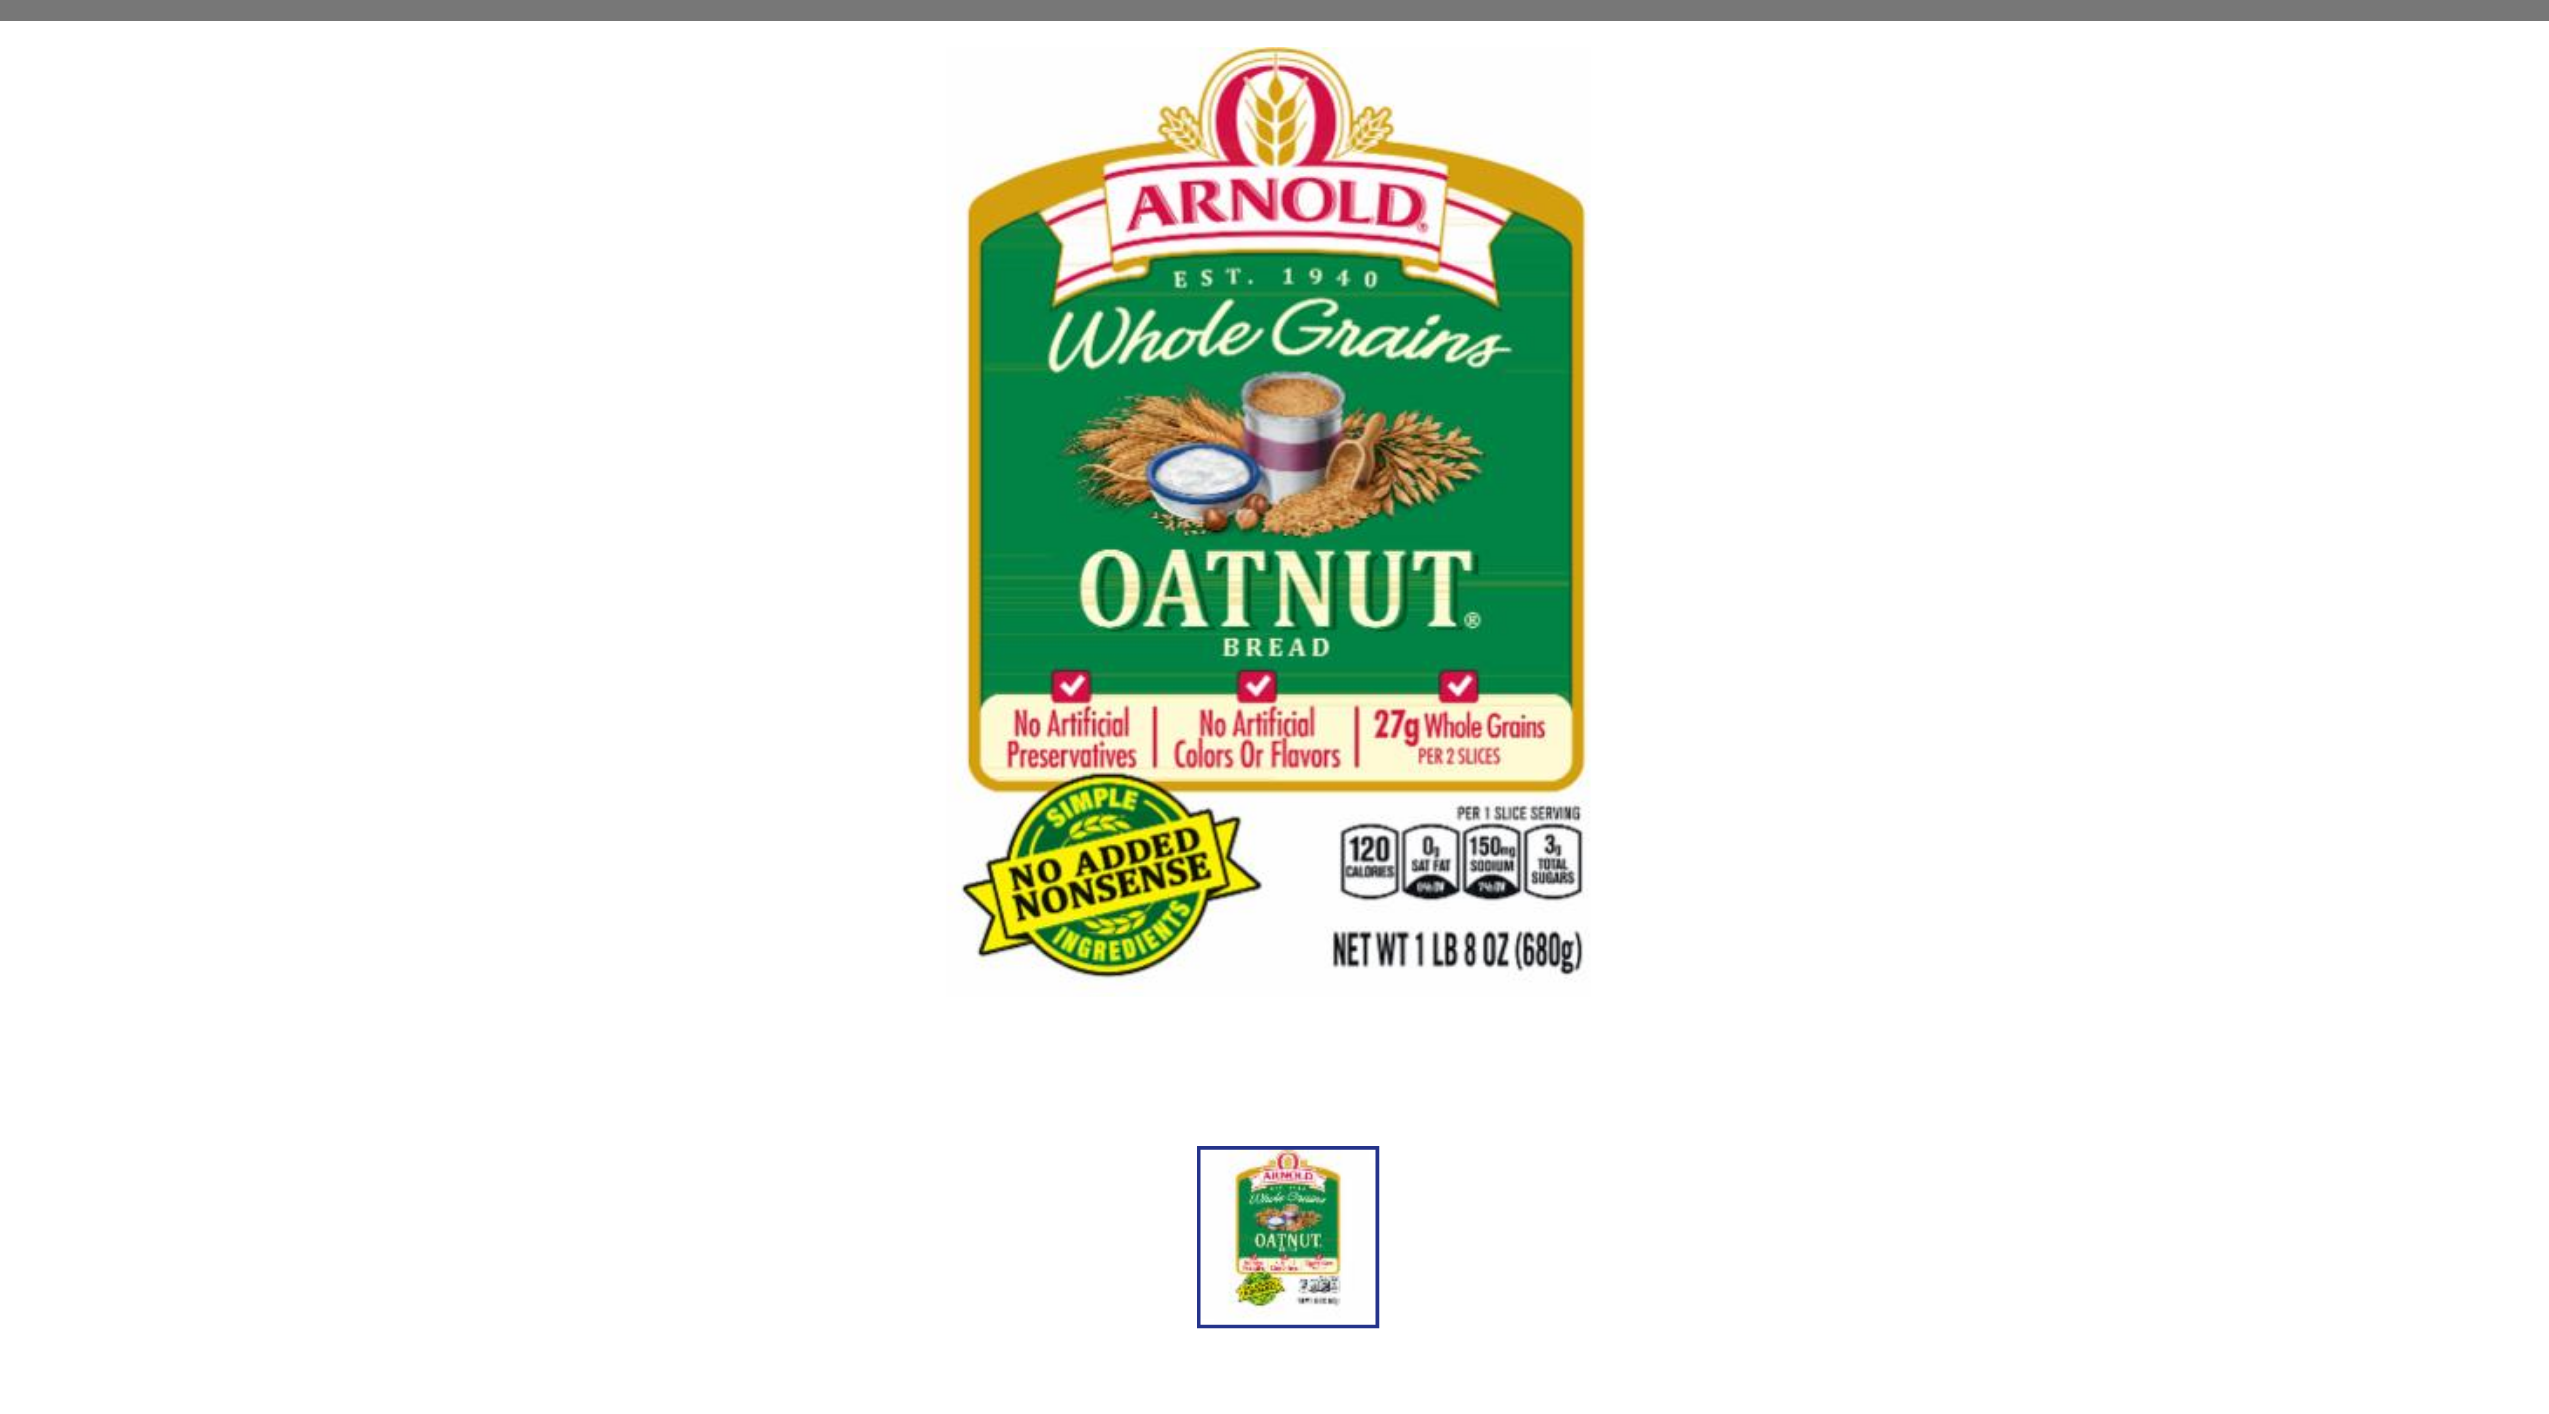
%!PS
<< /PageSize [2549 1414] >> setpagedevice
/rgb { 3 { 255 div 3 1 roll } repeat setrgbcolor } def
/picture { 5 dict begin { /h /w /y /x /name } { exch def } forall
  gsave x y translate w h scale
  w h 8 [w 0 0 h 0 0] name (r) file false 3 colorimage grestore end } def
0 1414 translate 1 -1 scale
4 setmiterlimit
255 255 255 rgb
0 0 2549 1414 rectfill
119 119 119 rgb
0 0 2549 21 rectfill
(img/1.rgb) 946 47 645 950 picture
36 51 138 rgb
4 setlinewidth
1199 1148 178 178 rectstroke
(img/2.rgb) 1200 1149 176 176 picture
showpage
